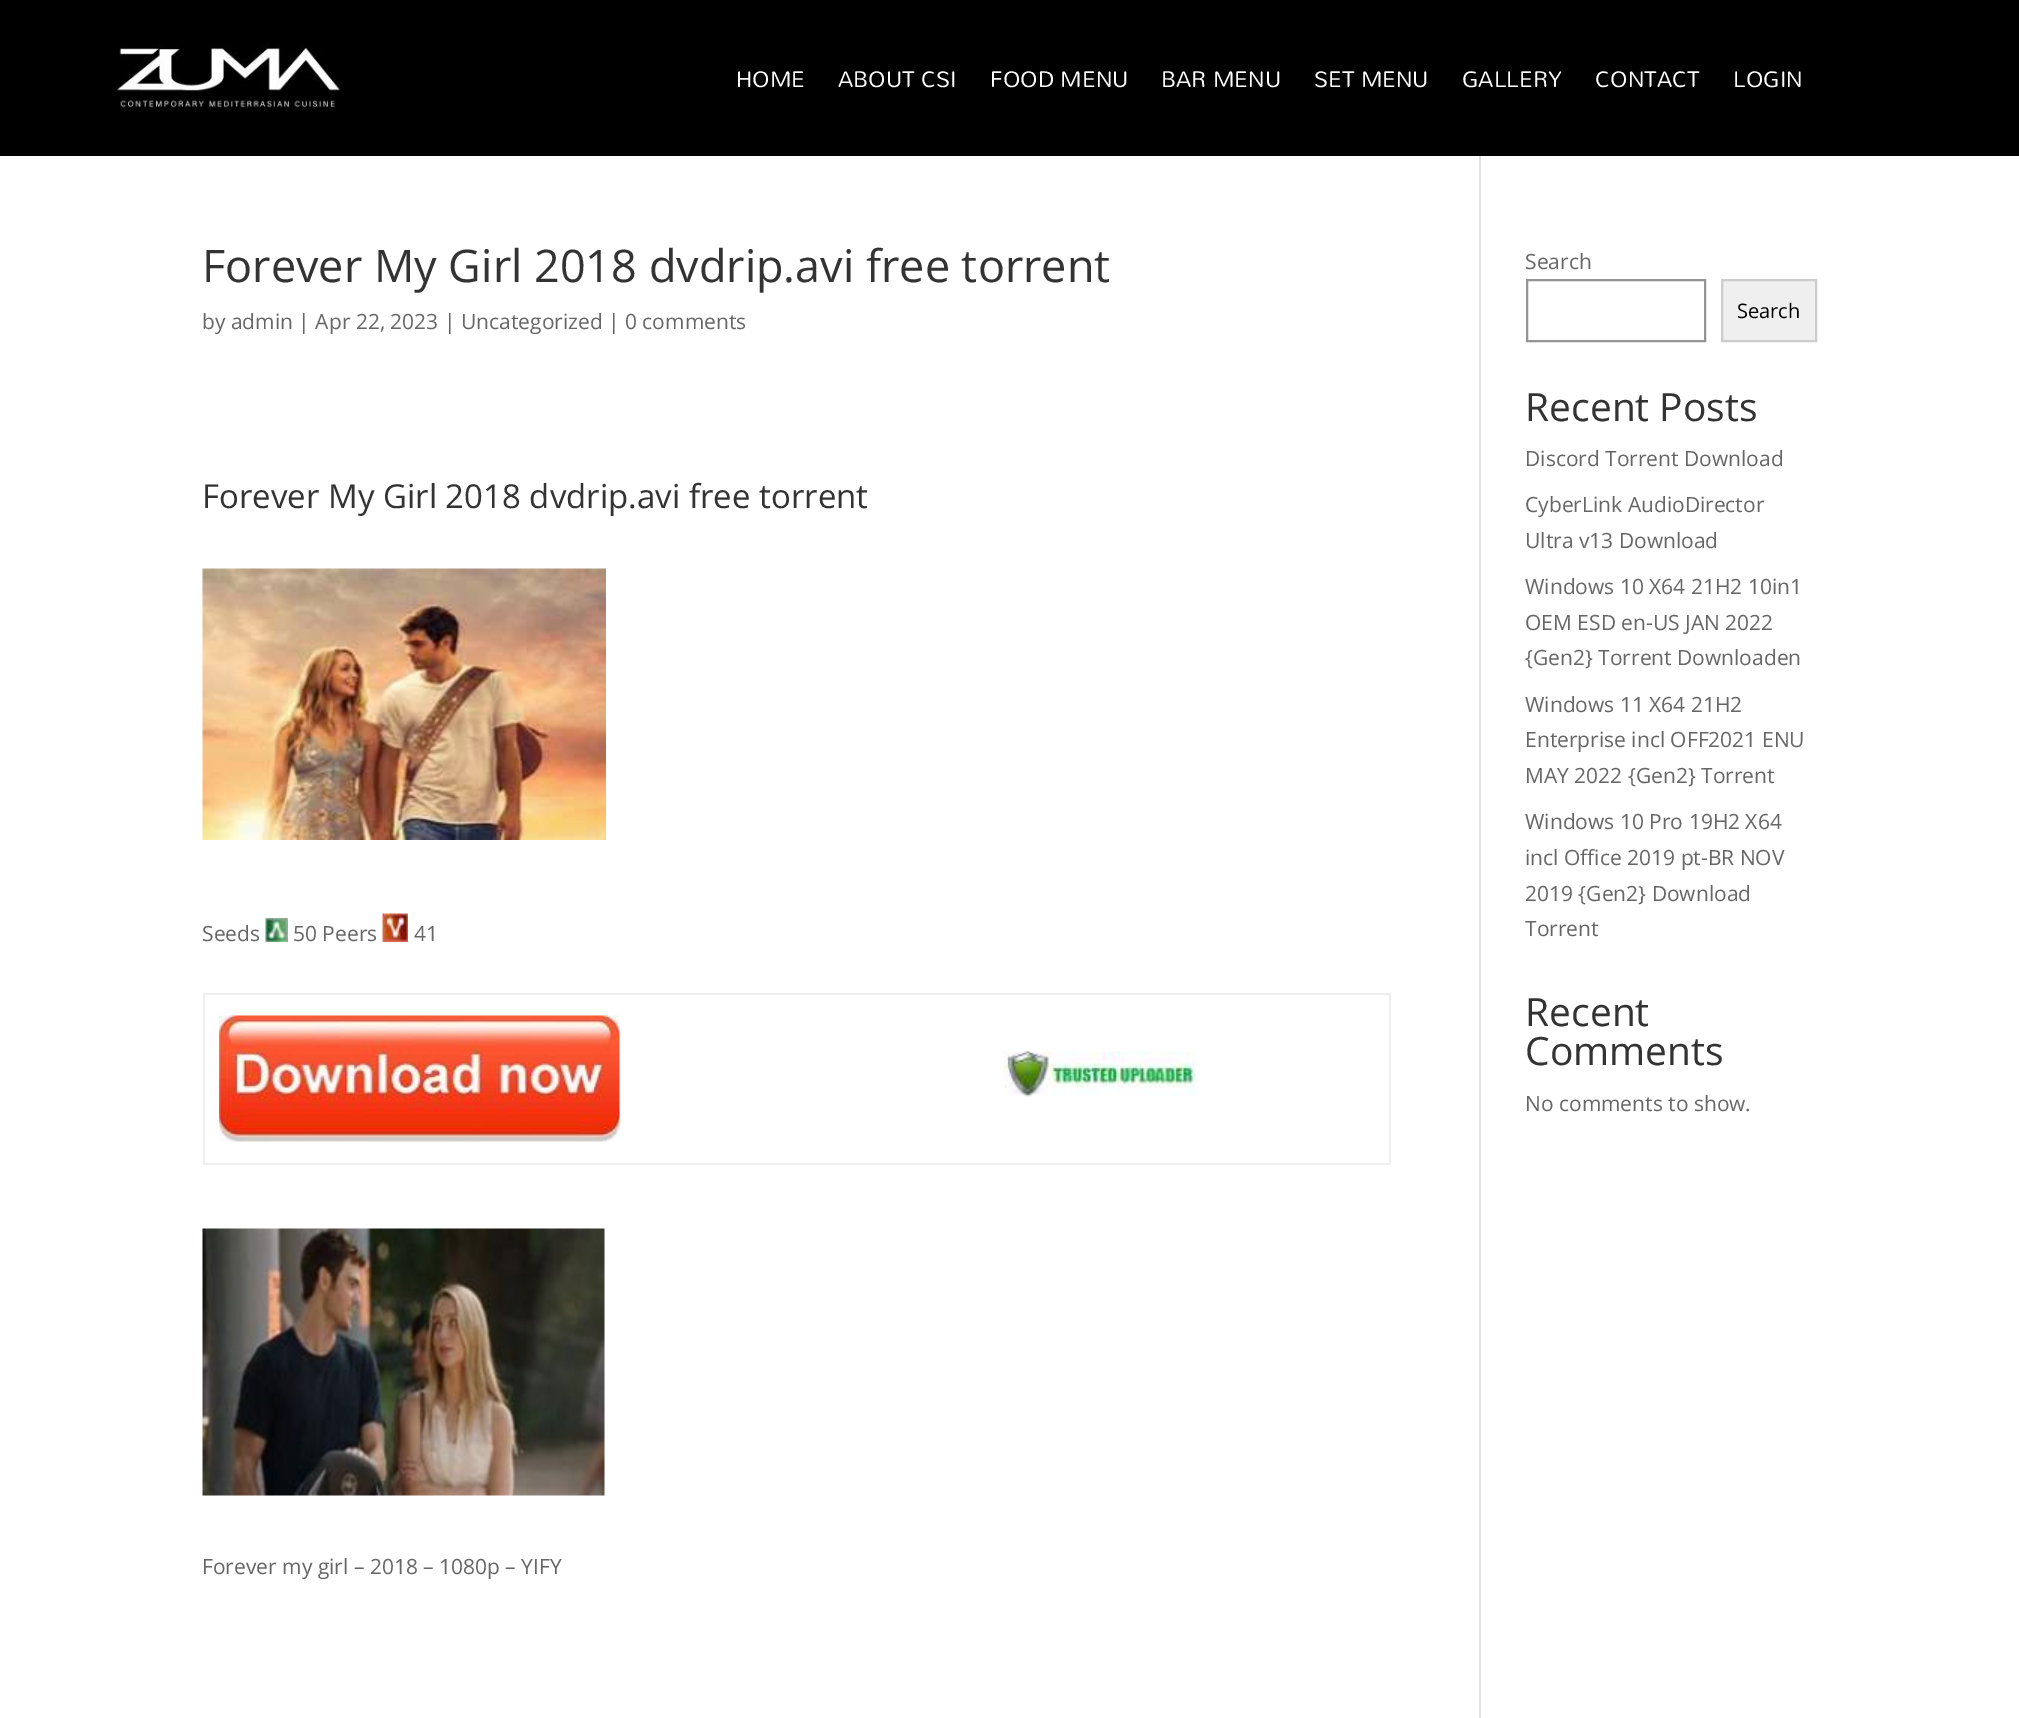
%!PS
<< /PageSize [2019 1718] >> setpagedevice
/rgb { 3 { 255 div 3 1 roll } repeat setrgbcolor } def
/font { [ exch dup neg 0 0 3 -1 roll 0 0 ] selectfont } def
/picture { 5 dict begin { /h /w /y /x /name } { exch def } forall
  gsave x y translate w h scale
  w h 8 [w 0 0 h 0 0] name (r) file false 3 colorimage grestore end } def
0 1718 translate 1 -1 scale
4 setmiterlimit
255 255 255 rgb
0 0 2019 1718 rectfill
0 0 0 rgb
0 0 2019 156 rectfill
(img/1.rgb) 113 44 230 67 picture
226 226 226 rgb
1479 156 2 1562 rectfill
(img/2.rgb) 202 568 404 272 picture
(img/3.rgb) 265 918 23 24 picture
(img/4.rgb) 382 913 26 29 picture
[
  [203 993 1188 2 238 238 238]
  [1389 993 2 171 238 238 238]
  [203 1163 1188 2 238 238 238]
  [203 993 2 171 238 238 238]
] { aload pop rgb rectfill } forall
(img/5.rgb) 219 1015 401 127 picture
(img/6.rgb) 1003 1051 194 46 picture
(img/7.rgb) 202 1228 403 268 picture
148 148 148 rgb
2 setlinewidth
1527 280 178 61 rectstroke
239 239 239 rgb
1722 280 moveto 1816 280 lineto 1816 341 lineto 1722 341 lineto closepath gsave fill grestore
204 204 204 rgb
stroke
/Mandali-Regular 22.5 font
255 255 255 rgb
[
  [(HOME) 736 87]
  [(ABOUT CSI) 838 87]
  [(FOOD MENU) 990 87]
  [(BAR MENU) 1161 87]
  [(SET MENU) 1314 87]
  [(GALLERY) 1462 87]
  [(CONTACT) 1595 87]
  [(LOGIN) 1733 87]
] { aload pop moveto show } forall
/OpenSans-Regular 45 font
51 51 51 rgb
202 282 moveto (Forever My Girl 2018 dvdrip.avi free torrent) show
/OpenSans-Regular 21 font
102 102 102 rgb
202 329 moveto (by admin | Apr 22, 2023 | Uncategorized | 0 comments) show
/OpenSans-Regular 33 font
51 51 51 rgb
202 508 moveto (Forever My Girl 2018 dvdrip.avi free torrent) show
/OpenSans-Regular 21 font
102 102 102 rgb
[
  [(Seeds) 202 941]
  [(50 Peers) 293 941]
  [(41) 414 941]
  [(Forever my girl – 2018 – 1080p – YIFY) 202 1574]
  [(Search) 1525 269]
] { aload pop moveto show } forall
/OpenSans-Regular 20 font
0 0 0 rgb
1737 318 moveto (Search) show
/OpenSans-Regular 39 font
51 51 51 rgb
1525 421 moveto (Recent Posts) show
/OpenSans-Regular 21 font
102 102 102 rgb
[
  [(Discord Torrent Download) 1525 466]
  [(CyberLink AudioDirector) 1525 512]
  [(Ultra v13 Download) 1525 548]
  [(Windows 10 X64 21H2 10in1) 1525 594]
  [(OEM ESD en-US JAN 2022) 1525 630]
  [({Gen2} Torrent Downloaden) 1525 665]
  [(Windows 11 X64 21H2) 1525 712]
  [(Enterprise incl OFF2021 ENU) 1525 747]
  [(MAY 2022 {Gen2} Torrent) 1525 783]
  [(Windows 10 Pro 19H2 X64) 1525 829]
  [(incl Office 2019 pt-BR NOV) 1525 865]
  [(2019 {Gen2} Download) 1525 901]
  [(Torrent) 1525 936]
] { aload pop moveto show } forall
/OpenSans-Regular 39 font
51 51 51 rgb
1525 1026 moveto (Recent) show
1525 1065 moveto (Comments) show
/OpenSans-Regular 21 font
102 102 102 rgb
1525 1111 moveto (No comments to show.) show
showpage
